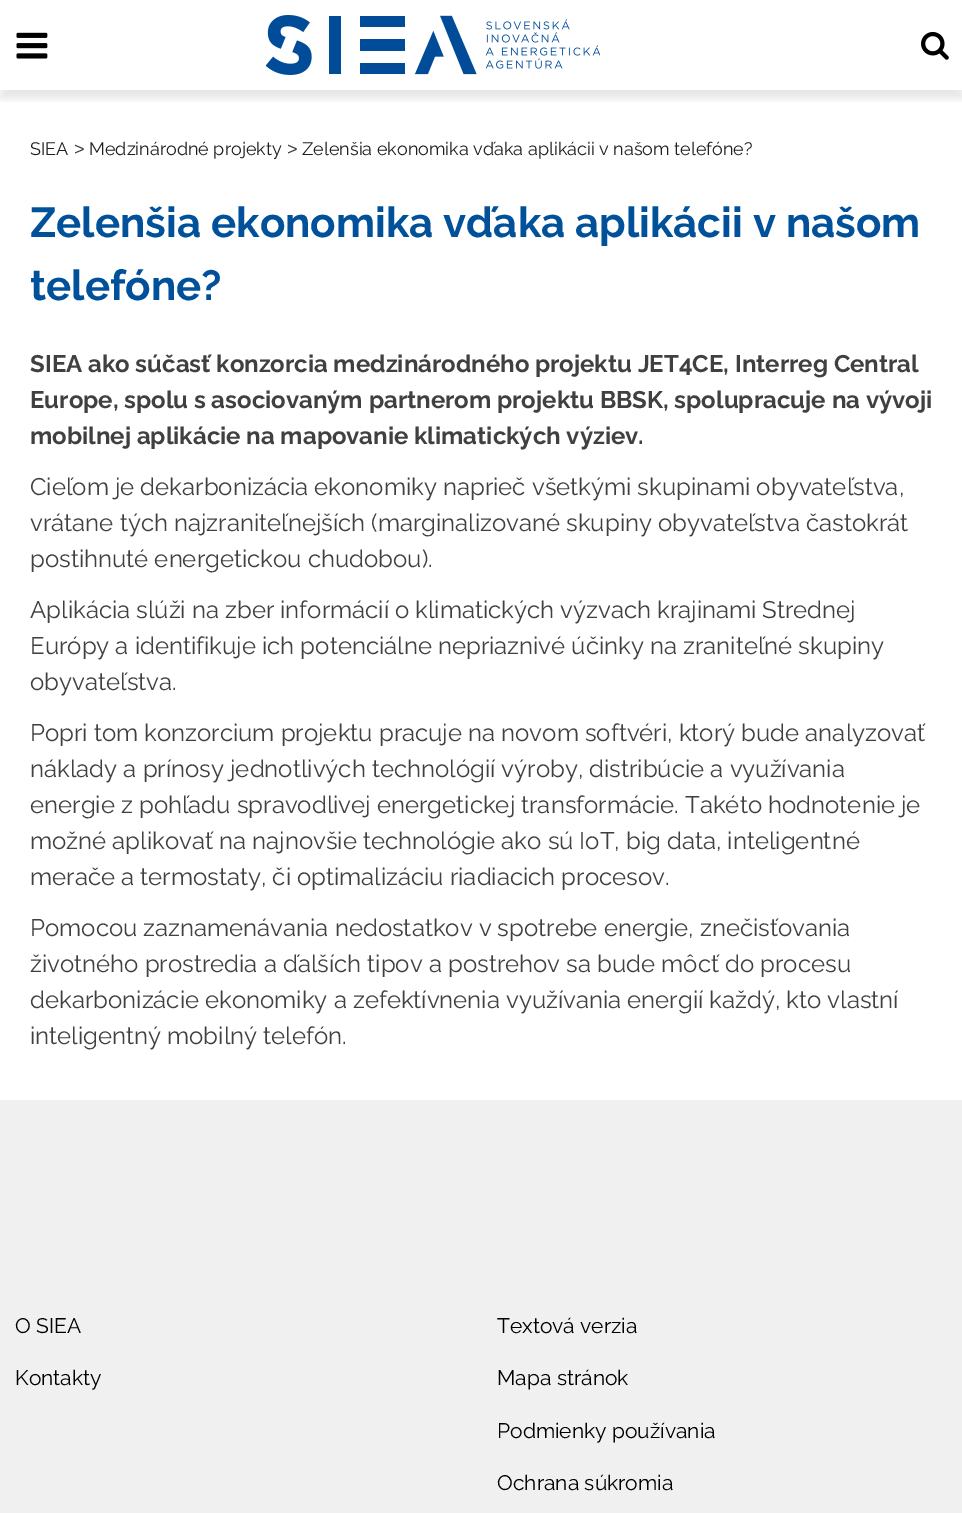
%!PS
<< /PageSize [962 1513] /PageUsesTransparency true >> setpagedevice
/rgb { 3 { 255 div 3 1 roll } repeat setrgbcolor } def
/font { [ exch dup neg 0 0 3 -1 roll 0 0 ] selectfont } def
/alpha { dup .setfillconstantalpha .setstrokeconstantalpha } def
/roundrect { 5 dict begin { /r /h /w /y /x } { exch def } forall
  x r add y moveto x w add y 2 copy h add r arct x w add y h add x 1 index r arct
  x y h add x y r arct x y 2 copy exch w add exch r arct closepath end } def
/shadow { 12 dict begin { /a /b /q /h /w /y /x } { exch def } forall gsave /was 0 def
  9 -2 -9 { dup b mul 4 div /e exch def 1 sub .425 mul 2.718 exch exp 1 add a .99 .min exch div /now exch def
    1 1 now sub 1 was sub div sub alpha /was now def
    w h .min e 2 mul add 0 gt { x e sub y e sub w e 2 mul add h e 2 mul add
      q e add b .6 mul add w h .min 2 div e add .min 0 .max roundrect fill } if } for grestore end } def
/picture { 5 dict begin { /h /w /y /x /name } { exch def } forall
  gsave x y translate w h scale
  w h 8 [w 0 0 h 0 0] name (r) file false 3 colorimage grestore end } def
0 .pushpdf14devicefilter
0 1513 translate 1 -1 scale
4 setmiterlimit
255 255 255 rgb
0 0 962 1513 rectfill
gsave
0 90 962 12 rectclip
0 0 0 rgb
0 9 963 90 0 4.5 0.09 shadow
grestore
(img/1.rgb) 266 15 334 60 picture
(img/2.rgb) 16 32 32 27 picture
(img/3.rgb) 921 31 28 29 picture
240 240 240 rgb
0 1100 962 413 rectfill
/Raleway-Regular 18 font
31 31 31 rgb
30 155 moveto (SIEA) show
/LiberationSans-Regular 18 font
64 64 64 rgb
74 155 moveto (>) show
/Raleway-Regular 18 font
31 31 31 rgb
89 155 moveto (Medzinárodné projekty) show
/LiberationSans-Regular 18 font
64 64 64 rgb
287 155 moveto (>) show
/Raleway-Regular 18 font
31 31 31 rgb
302 155 moveto (Zelenšia ekonomika vďaka aplikácii v našom telefóne?) show
/Raleway-Bold 42 font
0 81 154 rgb
30 237 moveto (Zelenšia ekonomika vďaka aplikácii v našom) show
30 300 moveto (telefóne?) show
/Raleway-Bold 24 font
64 64 64 rgb
[
  [(SIEA ako súčasť konzorcia medzinárodného projektu JET4CE, Interreg Central) 30 372]
  [(Europe, spolu s asociovaným partnerom projektu BBSK, spolupracuje na vývoji) 30 408]
  [(mobilnej aplikácie na mapovanie klimatických výziev.) 30 444]
] { aload pop moveto show } forall
/Raleway-Regular 24 font
[
  [(Cieľom je dekarbonizácia ekonomiky naprieč všetkými skupinami obyvateľstva,) 30 495]
  [(vrátane tých najzraniteľnejších \(marginalizované skupiny obyvateľstva častokrát) 30 531]
  [(postihnuté energetickou chudobou\).) 30 567]
  [(Aplikácia slúži na zber informácií o klimatických výzvach krajinami Strednej) 30 618]
  [(Európy a identifikuje ich potenciálne nepriaznivé účinky na zraniteľné skupiny) 30 654]
  [(obyvateľstva.) 30 690]
  [(Popri tom konzorcium projektu pracuje na novom softvéri, ktorý bude analyzovať) 30 741]
  [(náklady a prínosy jednotlivých technológií výroby, distribúcie a využívania) 30 777]
  [(energie z pohľadu spravodlivej energetickej transformácie. Takéto hodnotenie je) 30 813]
  [(možné aplikovať na najnovšie technológie ako sú IoT, big data, inteligentné) 30 849]
  [(merače a termostaty, či optimalizáciu riadiacich procesov.) 30 885]
  [(Pomocou zaznamenávania nedostatkov v spotrebe energie, znečisťovania) 30 936]
  [(životného prostredia a ďalších tipov a postrehov sa bude môcť do procesu) 30 972]
  [(dekarbonizácie ekonomiky a zefektívnenia využívania energií každý, kto vlastní) 30 1008]
  [(inteligentný mobilný telefón.) 30 1044]
] { aload pop moveto show } forall
/Raleway-Regular 21 font
0 0 0 rgb
[
  [(O SIEA) 15 1333]
  [(Kontakty) 15 1385]
  [(Textová verzia) 497 1333]
  [(Mapa stránok) 497 1385]
  [(Podmienky používania) 497 1438]
  [(Ochrana súkromia) 497 1490]
] { aload pop moveto show } forall
.poppdf14devicefilter showpage
